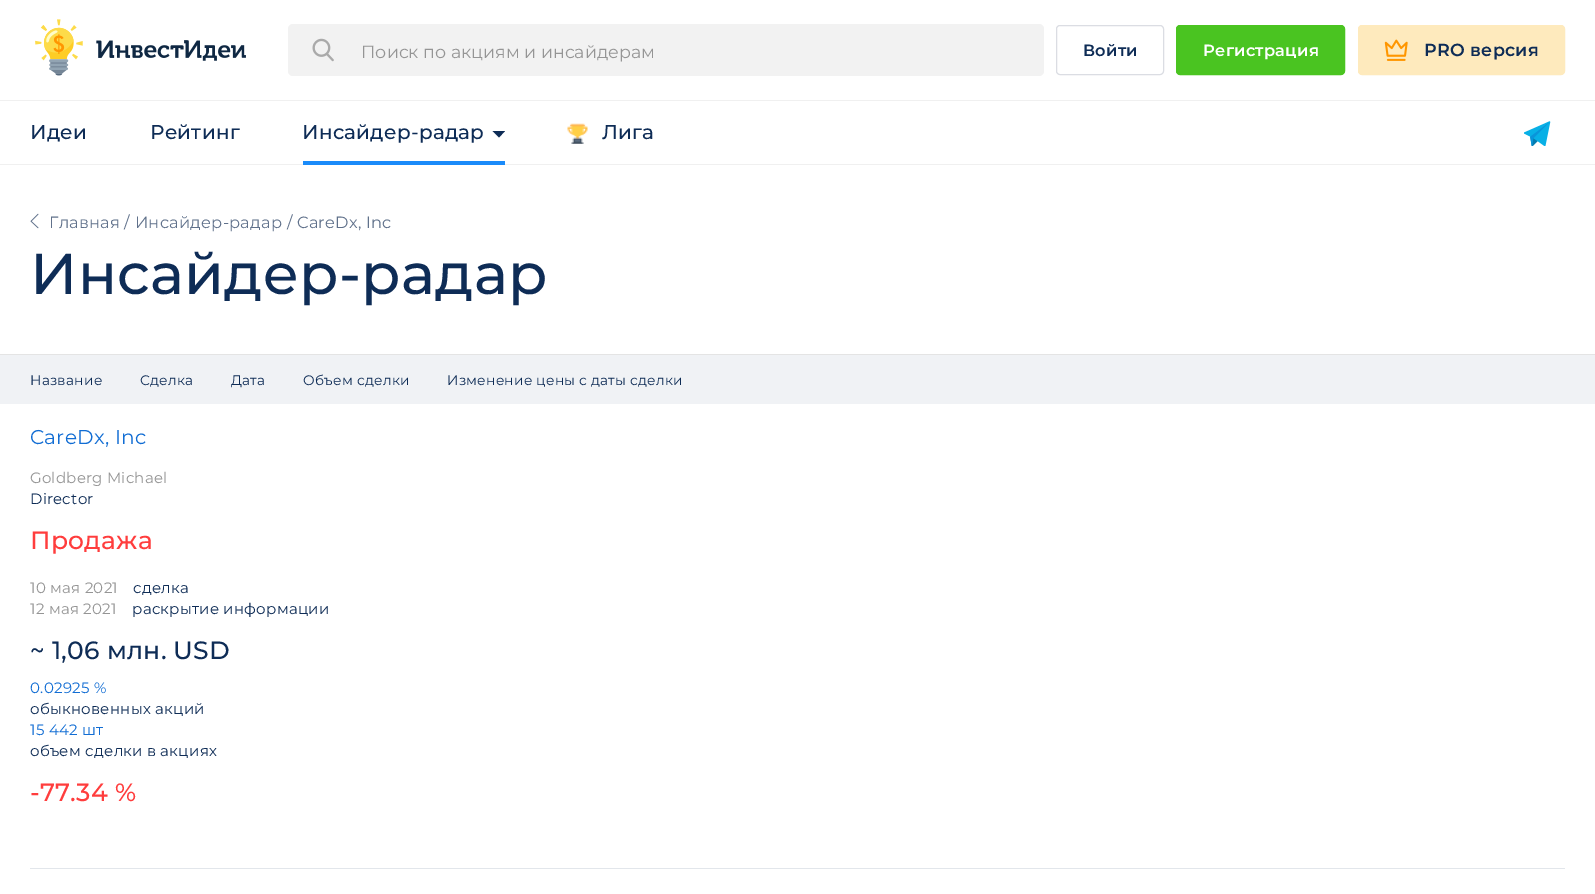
%!PS
<< /PageSize [1595 894] >> setpagedevice
/rgb { 3 { 255 div 3 1 roll } repeat setrgbcolor } def
/font { [ exch dup neg 0 0 3 -1 roll 0 0 ] selectfont } def
/roundrect { 5 dict begin { /r /h /w /y /x } { exch def } forall
  x r add y moveto x w add y 2 copy h add r arct x w add y h add x 1 index r arct
  x y h add x y r arct x y 2 copy exch w add exch r arct closepath end } def
/picture { 5 dict begin { /h /w /y /x /name } { exch def } forall
  gsave x y translate w h scale
  w h 8 [w 0 0 h 0 0] name (r) file false 3 colorimage grestore end } def
0 894 translate 1 -1 scale
4 setmiterlimit
255 255 255 rgb
0 0 1595 894 rectfill
240 240 240 rgb
0 100 1595 1 rectfill
(img/1.rgb) 35 19 211 57 picture
242 242 242 rgb
288 24 756 52 5 roundrect fill
(img/2.rgb) 312 38 22 24 picture
219 221 227 rgb
1056.5 25.5 107 49 3.5 roundrect stroke
74 196 33 rgb
1176.5 25.5 168 49 3.5 roundrect gsave fill grestore
74 196 32 rgb
stroke
254 234 189 rgb
1358.5 25.5 206 49 3.5 roundrect gsave fill grestore
stroke
(img/3.rgb) 1384 39 24 22 picture
240 240 240 rgb
0 164 1595 1 rectfill
26 139 250 rgb
303 161 202 4 rectfill
14 44 86 rgb
492.5 131 moveto 505 131 lineto 499 137.5 lineto closepath fill
(img/4.rgb) 567 123 21 21 picture
(img/5.rgb) 1524 121 27 25 picture
(img/6.rgb) 30 213 9 16 picture
[
  [0 354 1595 1 228 228 228]
  [0 355 1595 49 240 242 245]
  [30 868 1535 1 226 230 235]
] { aload pop rgb rectfill } forall
/Montserrat-Regular 17.5 font
149 149 149 rgb
361 58 moveto (Поиск по акциям и инсайдерам) show
/Montserrat-SemiBold 16.25 font
14 44 86 rgb
1083 56 moveto 0.25 0 (Войти) ashow
255 255 255 rgb
1203 56 moveto 0.25 0 (Регистрация) ashow
/Montserrat-SemiBold 17.5 font
14 44 86 rgb
1424 56 moveto 0.25 0 (PRO версия) ashow
/Montserrat-Medium 20 font
30 139 moveto 0.25 0 (Идеи) ashow
150 139 moveto 0.25 0 (Рейтинг) ashow
302 139 moveto 0.25 0 (Инсайдер-радар) ashow
602 139 moveto 0.25 0 (Лига) ashow
/Montserrat-Regular 16.25 font
96 113 139 rgb
49 228 moveto 0.25 0 (Главная / Инсайдер-радар / CareDx, Inc) ashow
/Montserrat-Medium 57.5 font
14 44 86 rgb
30 294 moveto 0.25 0 (Инсайдер-радар) ashow
/Montserrat-Regular 13.75 font
30 385 moveto 0.25 0 (Название) ashow
140 385 moveto 0.25 0 (Сделка) ashow
231 385 moveto 0.25 0 (Дата) ashow
303 385 moveto 0.25 0 (Объем сделки) ashow
447 385 moveto 0.25 0 (Изменение цены с даты сделки) ashow
/Montserrat-Regular 20 font
17 109 212 rgb
30 444 moveto 0.25 0 (CareDx, Inc) ashow
/Montserrat-Regular 15 font
149 149 149 rgb
30 483 moveto 0.25 0 (Goldberg Michael) ashow
14 44 86 rgb
30 504 moveto 0.25 0 (Director) ashow
/Montserrat-Medium 25 font
255 61 61 rgb
30 549 moveto 0.25 0 (Продажа) ashow
/Montserrat-Regular 15 font
149 149 149 rgb
30 593 moveto 0.25 0 (10 мая 2021) ashow
14 44 86 rgb
133 593 moveto 0.25 0 (сделка) ashow
149 149 149 rgb
30 614 moveto 0.25 0 (12 мая 2021) ashow
14 44 86 rgb
132 614 moveto 0.25 0 (раскрытие информации) ashow
/Montserrat-Medium 25 font
30 659 moveto 0.25 0 (~ 1,06 млн. USD) ashow
/Montserrat-Regular 15 font
17 109 212 rgb
30 693 moveto 0.25 0 (0.02925 %) ashow
14 44 86 rgb
30 714 moveto 0.25 0 (обыкновенных акций) ashow
17 109 212 rgb
30 735 moveto 0.25 0 (15 442 шт) ashow
14 44 86 rgb
30 756 moveto 0.25 0 (объем сделки в акциях) ashow
/Montserrat-Medium 25 font
255 61 61 rgb
30 801 moveto 0.25 0 (-77.34 %) ashow
showpage
